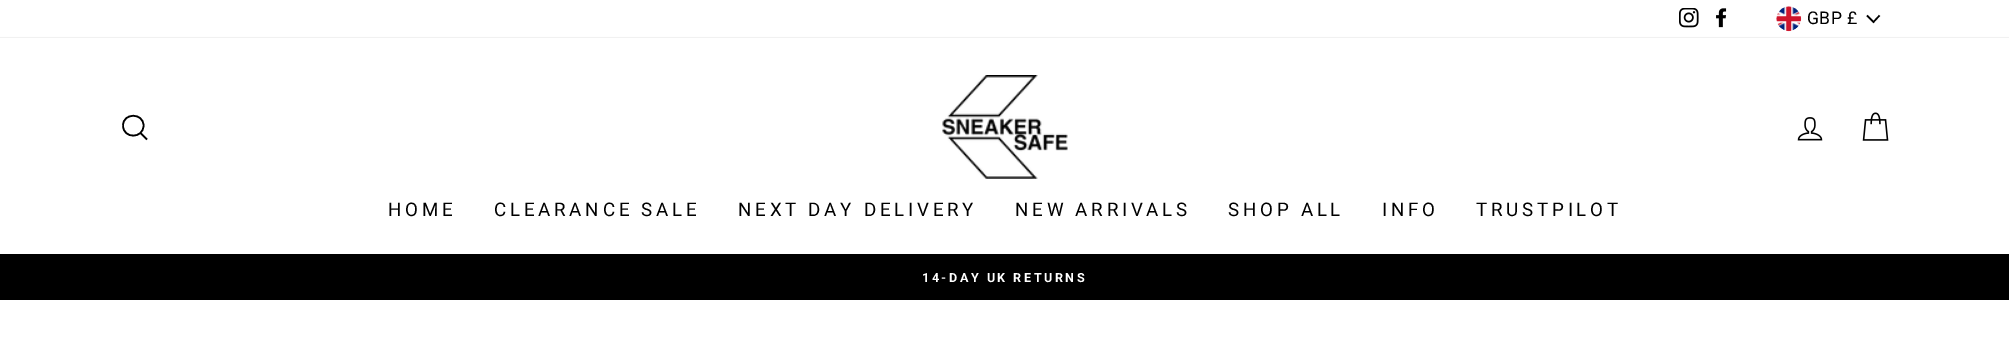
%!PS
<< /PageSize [2009 363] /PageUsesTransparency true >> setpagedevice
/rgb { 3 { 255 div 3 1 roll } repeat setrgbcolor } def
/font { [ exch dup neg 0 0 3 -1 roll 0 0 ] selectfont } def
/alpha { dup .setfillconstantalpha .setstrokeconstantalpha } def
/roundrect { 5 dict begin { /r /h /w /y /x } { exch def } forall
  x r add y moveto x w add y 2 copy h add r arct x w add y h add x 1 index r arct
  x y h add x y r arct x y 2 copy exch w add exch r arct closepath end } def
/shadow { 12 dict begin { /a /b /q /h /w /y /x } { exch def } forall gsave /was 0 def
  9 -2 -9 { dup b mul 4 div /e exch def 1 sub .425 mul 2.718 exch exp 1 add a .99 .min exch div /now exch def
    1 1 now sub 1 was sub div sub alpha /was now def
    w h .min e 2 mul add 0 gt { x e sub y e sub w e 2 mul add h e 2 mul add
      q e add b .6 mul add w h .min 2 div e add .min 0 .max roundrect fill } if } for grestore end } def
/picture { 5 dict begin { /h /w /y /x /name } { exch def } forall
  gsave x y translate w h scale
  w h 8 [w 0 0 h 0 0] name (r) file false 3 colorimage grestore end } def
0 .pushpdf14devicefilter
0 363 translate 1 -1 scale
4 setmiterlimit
255 255 255 rgb
0 0 2009 363 rectfill
(img/1.rgb) 1679 8 20 20 picture
(img/2.rgb) 1716 8 11 20 picture
(img/3.rgb) 1776 6 26 26 picture
0 0 0 rgb
1.5 setlinewidth
1867 15.5 moveto 1873.5 22 lineto 1879.5 15.5 lineto stroke
0 254 2009 46 rectfill
0 38 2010 216 0 0.5 0.2 shadow
255 255 255 rgb
0 38 2009 216 rectfill
0 0 0 rgb
1.6 setlinewidth
143.5 125.5 moveto 143.5 139 123 139 123 125.5 curveto 123 112.5 143.5 112.5 143.5 125.5 curveto closepath 147 139.5 moveto 140.5 133 lineto stroke
(img/4.rgb) 942 75 126 104 picture
(img/5.rgb) 1797 117 26 24 picture
(img/6.rgb) 1862 112 27 29 picture
/Roboto-Regular 17.5 font
1807 24 moveto 0.5 0 (GBP £) ashow
/Roboto-Regular 18.75 font
388 216 moveto 3.75 0 (HOME) ashow
494 216 moveto 3.75 0 (CLEARANCE SALE) ashow
738 216 moveto 3.75 0 (NEXT DAY DELIVERY) ashow
1015 216 moveto 3.75 0 (NEW ARRIVALS) ashow
1228 216 moveto 3.75 0 (SHOP ALL) ashow
1382 216 moveto 3.75 0 (INFO) ashow
1476 216 moveto 3.75 0 (TRUSTPILOT) ashow
/Roboto-Bold 12.6 font
255 255 255 rgb
922 282 moveto 2.5 0 (14-DAY UK RETURNS) ashow
.poppdf14devicefilter showpage
